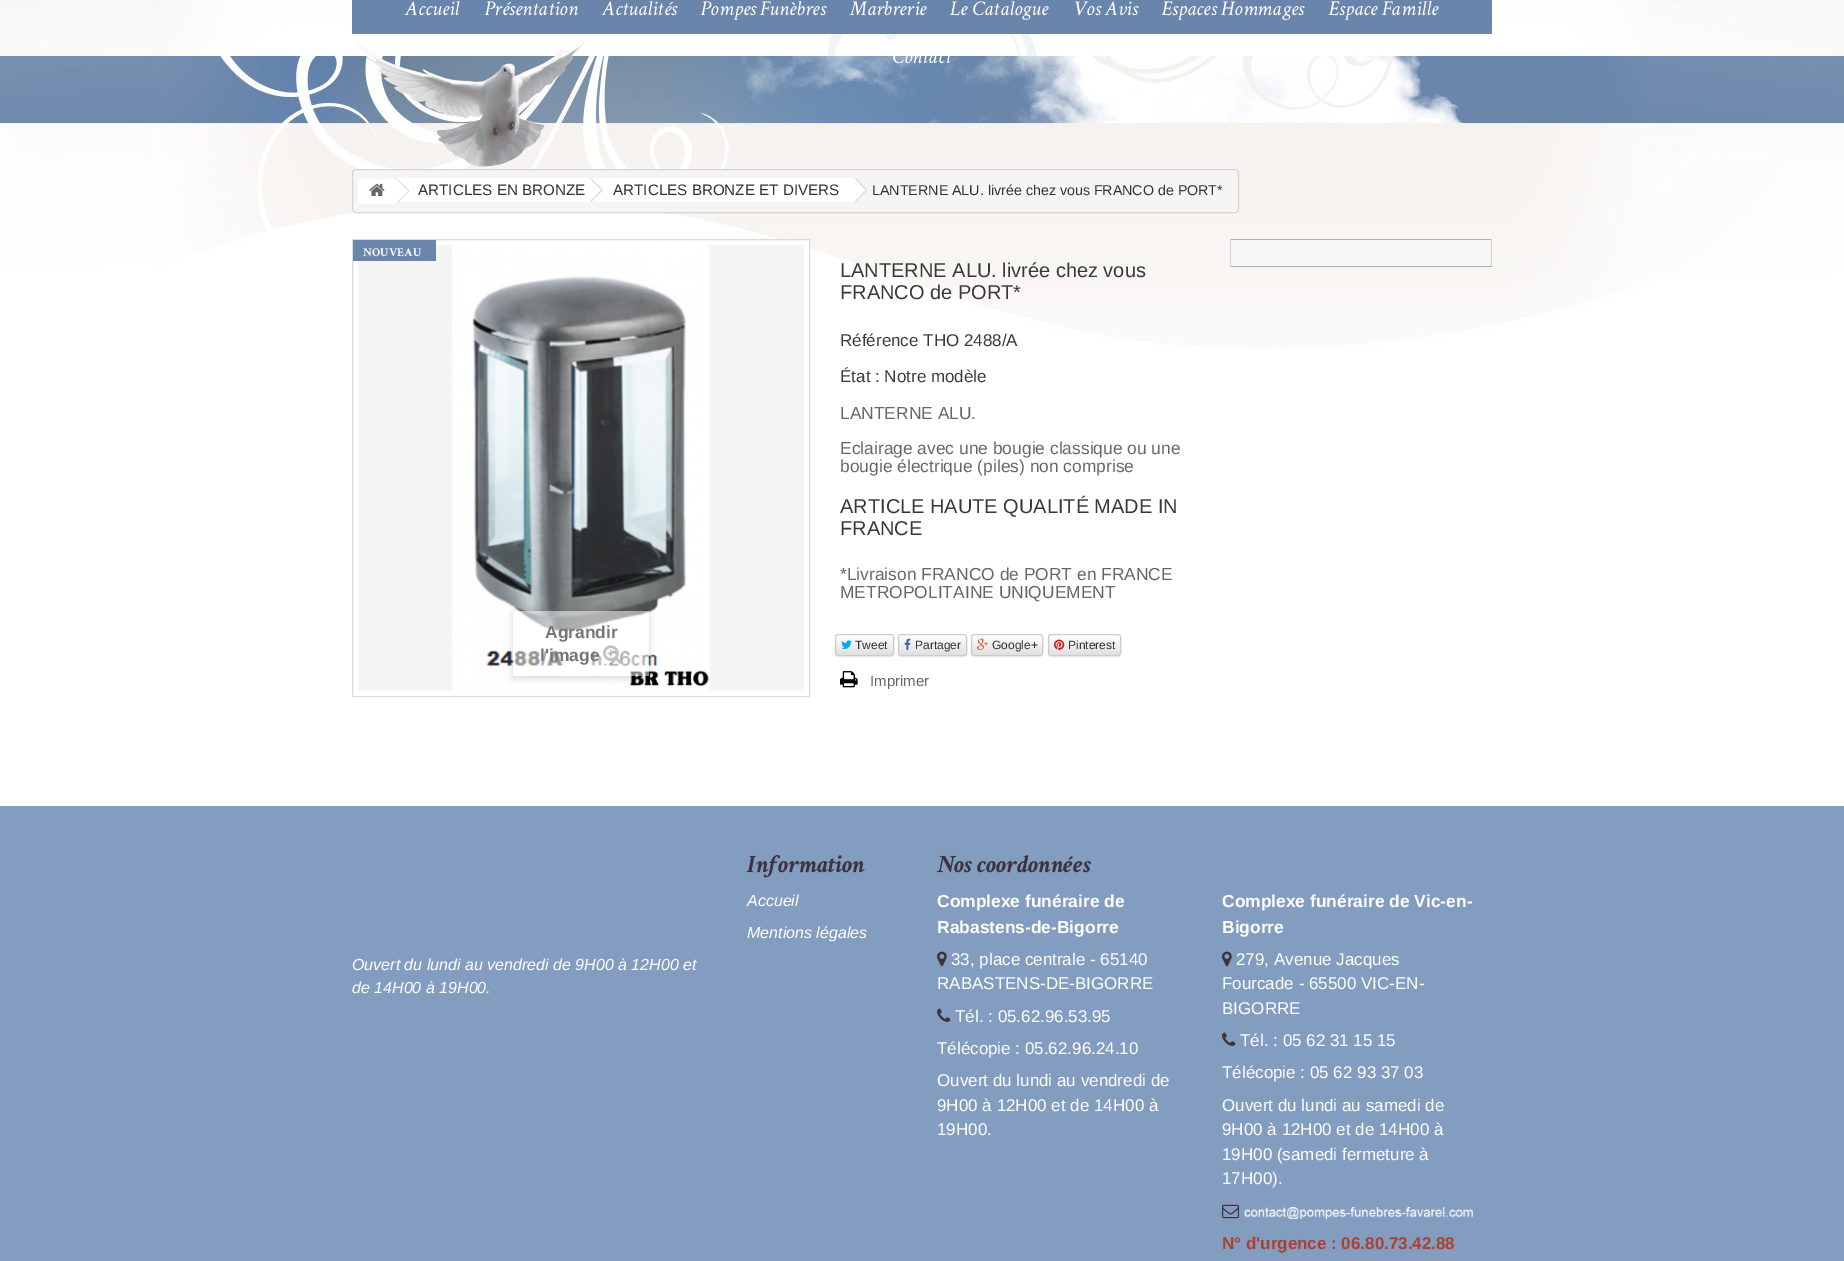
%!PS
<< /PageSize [1844 1261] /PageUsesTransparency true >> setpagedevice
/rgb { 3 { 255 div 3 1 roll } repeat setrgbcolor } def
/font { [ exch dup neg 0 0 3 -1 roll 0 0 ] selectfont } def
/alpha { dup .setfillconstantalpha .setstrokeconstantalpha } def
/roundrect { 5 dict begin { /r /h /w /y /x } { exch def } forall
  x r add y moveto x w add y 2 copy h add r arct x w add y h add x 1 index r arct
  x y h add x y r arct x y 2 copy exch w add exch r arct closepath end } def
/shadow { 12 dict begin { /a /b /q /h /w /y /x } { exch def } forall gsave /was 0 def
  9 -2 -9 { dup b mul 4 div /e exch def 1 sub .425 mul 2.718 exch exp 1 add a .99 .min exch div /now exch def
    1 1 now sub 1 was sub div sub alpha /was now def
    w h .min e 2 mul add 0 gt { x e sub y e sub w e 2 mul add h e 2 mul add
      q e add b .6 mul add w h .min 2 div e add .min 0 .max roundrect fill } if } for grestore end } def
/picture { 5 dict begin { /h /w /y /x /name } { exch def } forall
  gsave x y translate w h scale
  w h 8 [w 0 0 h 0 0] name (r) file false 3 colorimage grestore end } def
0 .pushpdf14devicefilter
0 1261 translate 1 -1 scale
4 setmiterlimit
255 255 255 rgb
0 0 1844 1261 rectfill
(img/1.rgb) 0 0 1844 349 picture
106 133 172 rgb
352 0 1140 34 rectfill
245 245 245 rgb
352.5 169.5 886 43 3.5 roundrect gsave fill grestore
214 212 212 rgb
stroke
255 255 255 rgb
396 178 195 24 rectfill
214 212 212 rgb
395.5 178 moveto 407 189.5 lineto 406 190 lineto 395 178.5 lineto closepath fill
255 255 255 rgb
361 179 moveto 396 179 lineto 396 204 lineto 361 204 lineto 359.5 204 358 202.5 358 201 curveto 358 182 lineto 358 180.5 359.5 179 361 179 curveto closepath fill
(img/2.rgb) 369 183 16 13 picture
398.5 179.5 moveto 408.5 189.5 lineto 409 190.5 409 191.5 408.5 192.5 curveto 398.5 202.5 lineto 397.5 203 396.5 203 395.5 202.5 curveto 385.5 192.5 lineto 385 191.5 385 190.5 385.5 189.5 curveto 395.5 179.5 lineto 396.5 179 397.5 179 398.5 179.5 curveto closepath fill
214 212 212 rgb
397.5 179 moveto 409 190.5 lineto 408.5 191 lineto 397 179.5 lineto closepath 408.5 191 moveto 409 191.5 lineto 397.5 203 lineto 397 202.5 lineto closepath fill
255 255 255 rgb
602 178.5 moveto 611.5 188.5 lineto 612.5 189.5 612.5 190.5 611.5 191.5 curveto 602 201.5 lineto 601 202 599.5 202 599 201.5 curveto 589 191.5 lineto 588.5 190.5 588.5 189.5 589 188.5 curveto 599 178.5 lineto 599.5 178 601 178 602 178.5 curveto closepath fill
591 178 263 24 rectfill
214 212 212 rgb
591 178 moveto 602.5 189.5 lineto 601.5 190 lineto 590.5 178.5 lineto closepath 601.5 190 moveto 602.5 190.5 lineto 591 202 lineto 590.5 201.5 lineto closepath fill
255 255 255 rgb
856 178.5 moveto 866 188.5 lineto 867 189.5 867 190.5 866 191.5 curveto 856 201.5 lineto 855.5 202 854 202 853.5 201.5 curveto 843.5 191.5 lineto 842.5 190.5 842.5 189.5 843.5 188.5 curveto 853.5 178.5 lineto 854 178 855.5 178 856 178.5 curveto closepath fill
214 212 212 rgb
855.5 178 moveto 867 189.5 lineto 866 190 lineto 855 178.5 lineto closepath 866 190 moveto 867 190.5 lineto 855.5 202 lineto 855 201.5 lineto closepath fill
255 255 255 rgb
776 240 33 9 rectfill
219 219 219 rgb
352.5 239.5 457 457 rectstroke
245 245 245 rgb
358 245 446 446 rectfill
106 134 171 rgb
353 240 83 21 rectfill
(img/3.rgb) 452 245 258 446 picture
gsave
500 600 moveto 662 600 lineto 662 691 lineto 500 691 lineto closepath 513 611 moveto 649 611 lineto 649 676 lineto 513 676 lineto closepath eoclip newpath
0 0 0 rgb
513 613 136 65 0 4 0.16 shadow
grestore
0.5 alpha
255 255 255 rgb
513 611 136 65 rectfill
1 alpha
(img/4.rgb) 603 645 19 19 picture
0 0 0 rgb
835 635 59 22 3 0.5 0.07 shadow
gsave
835 634 59 22 3 roundrect clip newpath
gsave 835 635 moveto 894 635 lineto 894 655 lineto 835 655 lineto closepath clip newpath
<< /ShadingType 2 /ColorSpace /DeviceRGB /Coords [865 635 865 655] /Extend [true true] /Function << /FunctionType 2 /Domain [0 1] /C0 [1 1 1] /C1 [0.878 0.878 0.878] /N 1 >> >> shfill grestore
grestore
204 204 204 rgb
835.5 634.5 58 21 2.5 roundrect stroke
(img/5.rgb) 841 640 11 9 picture
0 0 0 rgb
898 635 69 22 3 0.5 0.07 shadow
gsave
898 634 69 22 3 roundrect clip newpath
gsave 898 635 moveto 967 635 lineto 967 655 lineto 898 655 lineto closepath clip newpath
<< /ShadingType 2 /ColorSpace /DeviceRGB /Coords [933 635 933 655] /Extend [true true] /Function << /FunctionType 2 /Domain [0 1] /C0 [1 1 1] /C1 [0.878 0.878 0.878] /N 1 >> >> shfill grestore
grestore
204 204 204 rgb
898.5 634.5 68 21 2.5 roundrect stroke
(img/6.rgb) 904 638 7 12 picture
0 0 0 rgb
971 635 72 22 3 0.5 0.07 shadow
gsave
971 634 72 22 3 roundrect clip newpath
gsave 971 635 moveto 1043 635 lineto 1043 655 lineto 971 655 lineto closepath clip newpath
<< /ShadingType 2 /ColorSpace /DeviceRGB /Coords [1007 635 1007 655] /Extend [true true] /Function << /FunctionType 2 /Domain [0 1] /C0 [1 1 1] /C1 [0.878 0.878 0.878] /N 1 >> >> shfill grestore
grestore
204 204 204 rgb
971.5 634.5 71 21 2.5 roundrect stroke
(img/7.rgb) 977 638 11 12 picture
0 0 0 rgb
1048 635 73 22 3 0.5 0.07 shadow
gsave
1048 634 73 22 3 roundrect clip newpath
gsave 1048 635 moveto 1121 635 lineto 1121 655 lineto 1048 655 lineto closepath clip newpath
<< /ShadingType 2 /ColorSpace /DeviceRGB /Coords [1085 635 1085 655] /Extend [true true] /Function << /FunctionType 2 /Domain [0 1] /C0 [1 1 1] /C1 [0.878 0.878 0.878] /N 1 >> >> shfill grestore
grestore
204 204 204 rgb
1048.5 634.5 72 21 2.5 roundrect stroke
(img/8.rgb) 1054 639 11 11 picture
(img/9.rgb) 840 671 18 17 picture
[
  [1231 240 260 26 246 246 246]
  [1230 239 262 1 176 175 175]
  [1491 239 1 28 210 208 208]
  [1230 266 262 1 176 175 175]
  [1230 239 1 28 210 208 208]
  [0 806 1844 455 131 157 192]
] { aload pop rgb rectfill } forall
(img/10.rgb) 937 951 10 16 picture
(img/11.rgb) 937 1008 14 14 picture
(img/10.rgb) 1222 951 10 16 picture
(img/11.rgb) 1222 1032 14 14 picture
(img/12.rgb) 1222 1204 18 15 picture
(img/13.rgb) 1244 1207 229 12 picture
/CrimsonText-Italic 21 font
255 255 255 rgb
[
  [(Accueil) 405 15]
  [(Présentation) 484 15]
  [(Actualités) 602 15]
  [(Pompes Funèbres) 700 15]
  [(Marbrerie) 850 15]
  [(Le Catalogue) 950 15]
  [(Vos Avis) 1073 15]
  [(Espaces Hommages) 1161 15]
  [(Espace Famille) 1328 15]
  [(Contact) 892 63]
] { aload pop moveto show } forall
/LiberationSans-Regular 15.2 font
51 51 51 rgb
418 195 moveto (ARTICLES EN BRONZE) show
613 195 moveto (ARTICLES BRONZE ET DIVERS) show
/LiberationSans-Regular 14.25 font
872 195 moveto (LANTERNE ALU. livrée chez vous FRANCO de PORT*) show
/CrimsonText-Bold 12 font
255 255 255 rgb
363 256 moveto (NOUVEAU) show
/LiberationSans-Bold 17.4 font
119 118 118 rgb
545 638 moveto (Agrandir) show
540 661 moveto (l'image) show
/LiberationSans-Regular 20 font
58 57 57 rgb
840 277 moveto (LANTERNE ALU. livrée chez vous) show
840 299 moveto (FRANCO de PORT*) show
/LiberationSans-Regular 17 font
840 346 moveto (Référence THO 2488/A) show
840 382 moveto (État : Notre modèle) show
/LiberationSans-Regular 17.4 font
102 102 102 rgb
[
  [(LANTERNE ALU.) 840 419]
  [(Eclairage avec une bougie classique ou une) 840 454]
  [(bougie électrique \(piles\) non comprise) 840 472]
] { aload pop moveto show } forall
/LiberationSans-Regular 20 font
58 57 57 rgb
840 513 moveto (ARTICLE HAUTE QUALITÉ MADE IN) show
840 535 moveto (FRANCE) show
/LiberationSans-Regular 17.4 font
102 102 102 rgb
840 580 moveto (*Livraison FRANCO de PORT en FRANCE) show
840 598 moveto (METROPOLITAINE UNIQUEMENT) show
/LiberationSans-Regular 12 font
51 51 51 rgb
[
  [(Tweet) 855 649]
  [(Partager) 915 649]
  [(Google+) 992 649]
  [(Pinterest) 1068 649]
] { aload pop moveto show } forall
/LiberationSans-Regular 15 font
102 102 102 rgb
870 686 moveto (Imprimer) show
/LiberationSans-Italic 16 font
255 255 255 rgb
352 970 moveto (Ouvert du lundi au vendredi de 9H00 à 12H00 et) show
352 993 moveto (de 14H00 à 19H00.) show
/CrimsonText-BoldItalic 25 font
61 50 62 rgb
747 872 moveto (Information) show
/LiberationSans-Italic 16 font
255 255 255 rgb
747 906 moveto (Accueil) show
747 938 moveto (Mentions légales) show
/CrimsonText-BoldItalic 25 font
61 50 62 rgb
937 872 moveto (Nos coordonnées) show
/LiberationSans-Bold 17.4 font
255 255 255 rgb
937 907 moveto (Complexe funéraire de) show
937 933 moveto (Rabastens-de-Bigorre) show
/LiberationSans-Regular 17 font
[
  [(33, place centrale - 65140) 951 965]
  [(RABASTENS-DE-BIGORRE) 937 989]
  [(Tél. : 05.62.96.53.95) 955 1022]
  [(Télécopie : 05.62.96.24.10) 937 1054]
  [(Ouvert du lundi au vendredi de) 937 1086]
  [(9H00 à 12H00 et de 14H00 à) 937 1111]
  [(19H00.) 937 1135]
] { aload pop moveto show } forall
/LiberationSans-Bold 17.4 font
1222 907 moveto (Complexe funéraire de Vic-en-) show
1222 933 moveto (Bigorre) show
/LiberationSans-Regular 17 font
[
  [(279, Avenue Jacques) 1236 965]
  [(Fourcade - 65500 VIC-EN-) 1222 989]
  [(BIGORRE) 1222 1014]
  [(Tél. : 05 62 31 15 15) 1240 1046]
  [(Télécopie : 05 62 93 37 03) 1222 1078]
  [(Ouvert du lundi au samedi de) 1222 1111]
  [(9H00 à 12H00 et de 14H00 à) 1222 1135]
  [(19H00 \(samedi fermeture à) 1222 1160]
  [(17H00\).) 1222 1184]
] { aload pop moveto show } forall
/LiberationSans-Bold 17 font
173 63 46 rgb
1222 1249 moveto (N° d'urgence : 06.80.73.42.88) show
.poppdf14devicefilter showpage
